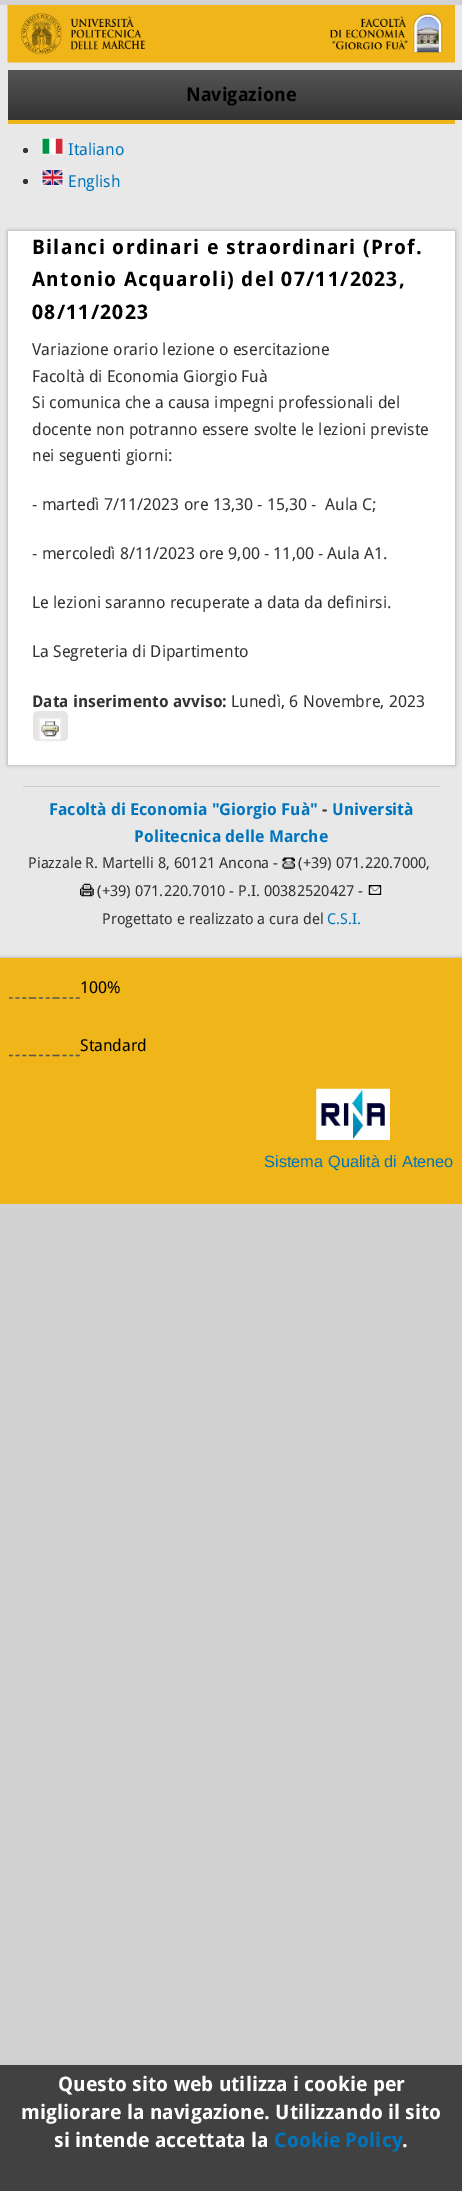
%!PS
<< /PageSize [462 2191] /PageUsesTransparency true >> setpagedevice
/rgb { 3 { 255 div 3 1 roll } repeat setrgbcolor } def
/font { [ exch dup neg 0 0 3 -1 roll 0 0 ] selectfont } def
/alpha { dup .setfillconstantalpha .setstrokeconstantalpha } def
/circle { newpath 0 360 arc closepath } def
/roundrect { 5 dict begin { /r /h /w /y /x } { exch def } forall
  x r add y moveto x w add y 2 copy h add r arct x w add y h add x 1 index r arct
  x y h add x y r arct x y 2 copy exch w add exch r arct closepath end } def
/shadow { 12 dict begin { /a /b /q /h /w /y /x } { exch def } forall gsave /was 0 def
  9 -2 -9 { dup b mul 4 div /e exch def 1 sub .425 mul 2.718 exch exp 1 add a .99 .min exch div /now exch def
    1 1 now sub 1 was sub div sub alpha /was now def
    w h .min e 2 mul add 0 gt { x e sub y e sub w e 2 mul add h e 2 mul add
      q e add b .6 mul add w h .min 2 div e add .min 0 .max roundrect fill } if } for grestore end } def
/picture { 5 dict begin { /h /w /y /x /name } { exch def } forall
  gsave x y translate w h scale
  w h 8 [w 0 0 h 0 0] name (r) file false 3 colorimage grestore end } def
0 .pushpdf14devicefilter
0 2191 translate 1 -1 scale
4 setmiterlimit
210 210 210 rgb
0 0 462 2191 rectfill
232 232 232 rgb
0 5 462 953 rectfill
(img/1.rgb) 7 5 448 58 picture
240 181 25 rgb
8 120 447 4 rectfill
gsave 8 70 moveto 462 70 lineto 462 120 lineto 8 120 lineto closepath clip newpath
<< /ShadingType 2 /ColorSpace /DeviceRGB /Coords [241 70 241 120] /Extend [true true] /Function << /FunctionType 2 /Domain [0 1] /C0 [0.333 0.333 0.333] /C1 [0.2 0.2 0.2] /N 1 >> >> shfill grestore
51 51 51 rgb
25.5 150.5 2.5 circle fill
255 255 255 rgb
41.5 138.5 moveto 63.5 138.5 lineto 63.5 154.5 lineto 41.5 154.5 lineto closepath gsave fill grestore
238 238 238 rgb
stroke
(img/2.rgb) 42 138 21 16 picture
51 51 51 rgb
25.5 181.5 2.5 circle fill
255 255 255 rgb
41.5 169.5 moveto 63.5 169.5 lineto 63.5 185.5 lineto 41.5 185.5 lineto closepath gsave fill grestore
238 238 238 rgb
stroke
(img/3.rgb) 42 170 21 15 picture
153 153 153 rgb
8 231 447 534 0 2 1 shadow
255 255 255 rgb
8 231 447 534 rectfill
231 229 227 rgb
33 711 35 30 5 roundrect fill
238 238 238 rgb
39 718 22 22 0 2 1 shadow
255 255 255 rgb
39.5 718.5 moveto 60.5 718.5 lineto 60.5 739.5 lineto 39.5 739.5 lineto closepath gsave fill grestore
238 238 238 rgb
stroke
(img/4.rgb) 41 721 18 16 picture
204 204 204 rgb
23 786 417 1 rectfill
(img/5.rgb) 282 857 13 12 picture
(img/6.rgb) 80 883 14 14 picture
255 255 255 rgb
368.5 884.5 moveto 382.5 884.5 lineto 382.5 895.5 lineto 368.5 895.5 lineto closepath gsave fill grestore
238 238 238 rgb
stroke
(img/7.rgb) 368 885 14 10 picture
gsave
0 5 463 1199 rectclip
153 153 153 rgb
0 958 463 246 0 2 1 shadow
grestore
240 181 25 rgb
0 958 462 246 rectfill
85 85 85 rgb
1.2 setlinewidth
[3.75 2.91] 0 setdash
9 998 moveto 32.5 998 lineto 32.5 998 moveto 56 998 lineto stroke
56 998 moveto 80 998 lineto stroke
9 1055.5 moveto 32.5 1055.5 lineto 32.5 1055.5 moveto 56 1055.5 lineto stroke
56 1055.5 moveto 80 1055.5 lineto stroke
(img/8.rgb) 316 1088 74 52 picture
65 65 65 rgb
0 2065 462 126 rectfill
/DroidSans-Bold 18.75 font
0 0 0 rgb
186 101 moveto (Navigazione) show
/DroidSans-Regular 16.4 font
0 116 189 rgb
68 155 moveto (Italiano) show
68 187 moveto (English) show
/DroidSans-Bold 20 font
0 0 0 rgb
32 254 moveto 1.25 0 (Bilanci ordinari e straordinari \(Prof.) ashow
32 286 moveto 1.25 0 (Antonio Acquaroli\) del 07/11/2023,) ashow
32 319 moveto 1.25 0 (08/11/2023) ashow
/DroidSans-Regular 16.4 font
51 51 51 rgb
[
  [(Variazione orario lezione o esercitazione) 32 355]
  [(Facoltà di Economia Giorgio Fuà) 32 382]
  [(Si comunica che a causa impegni professionali del) 32 408]
  [(docente non potranno essere svolte le lezioni previste) 32 435]
  [(nei seguenti giorni:) 32 461]
  [(- martedì 7/11/2023 ore 13,30 - 15,30 -  Aula C;) 32 510]
  [(- mercoledì 8/11/2023 ore 9,00 - 11,00 - Aula A1.) 32 559]
  [(Le lezioni saranno recuperate a data da definirsi.) 32 608]
  [(La Segreteria di Dipartimento) 32 657]
] { aload pop moveto show } forall
/DroidSans-Bold 16.25 font
32 707 moveto (Data inserimento avviso:) show
/DroidSans-Regular 16.4 font
231 707 moveto (Lunedì, 6 Novembre, 2023) show
/DroidSans-Bold 16.4 font
0 116 189 rgb
49 815 moveto (Facoltà di Economia "Giorgio Fuà") show
51 51 51 rgb
322 815 moveto (-) show
0 116 189 rgb
332 815 moveto (Università) show
134 842 moveto (Politecnica delle Marche) show
/DroidSans-Regular 15 font
51 51 51 rgb
[
  [(Piazzale R. Martelli 8, 60121 Ancona -) 28 868]
  [(\(+39\) 071.220.7000,) 298 868]
  [(\(+39\) 071.220.7010 - P.I. 00382520427 -) 97 896]
  [(Progettato e realizzato a cura del) 102 924]
] { aload pop moveto show } forall
0 116 189 rgb
327 924 moveto (C.S.I.) show
/DroidSans-Regular 16.4 font
0 0 0 rgb
80 993 moveto (100%) show
80 1051 moveto (Standard) show
/LiberationSans-Regular 16.4 font
0 116 189 rgb
264 1167 moveto (Sistema Qualità di Ateneo) show
/DroidSans-Bold 20 font
255 255 255 rgb
[
  [(Questo sito web utilizza i cookie per) 58 2091]
  [(migliorare la navigazione. Utilizzando il sito) 21 2119]
  [(si intende accettata la) 54 2147]
] { aload pop moveto show } forall
0 116 189 rgb
274 2147 moveto (Cookie Policy) show
255 255 255 rgb
402 2147 moveto (.) show
.poppdf14devicefilter showpage
